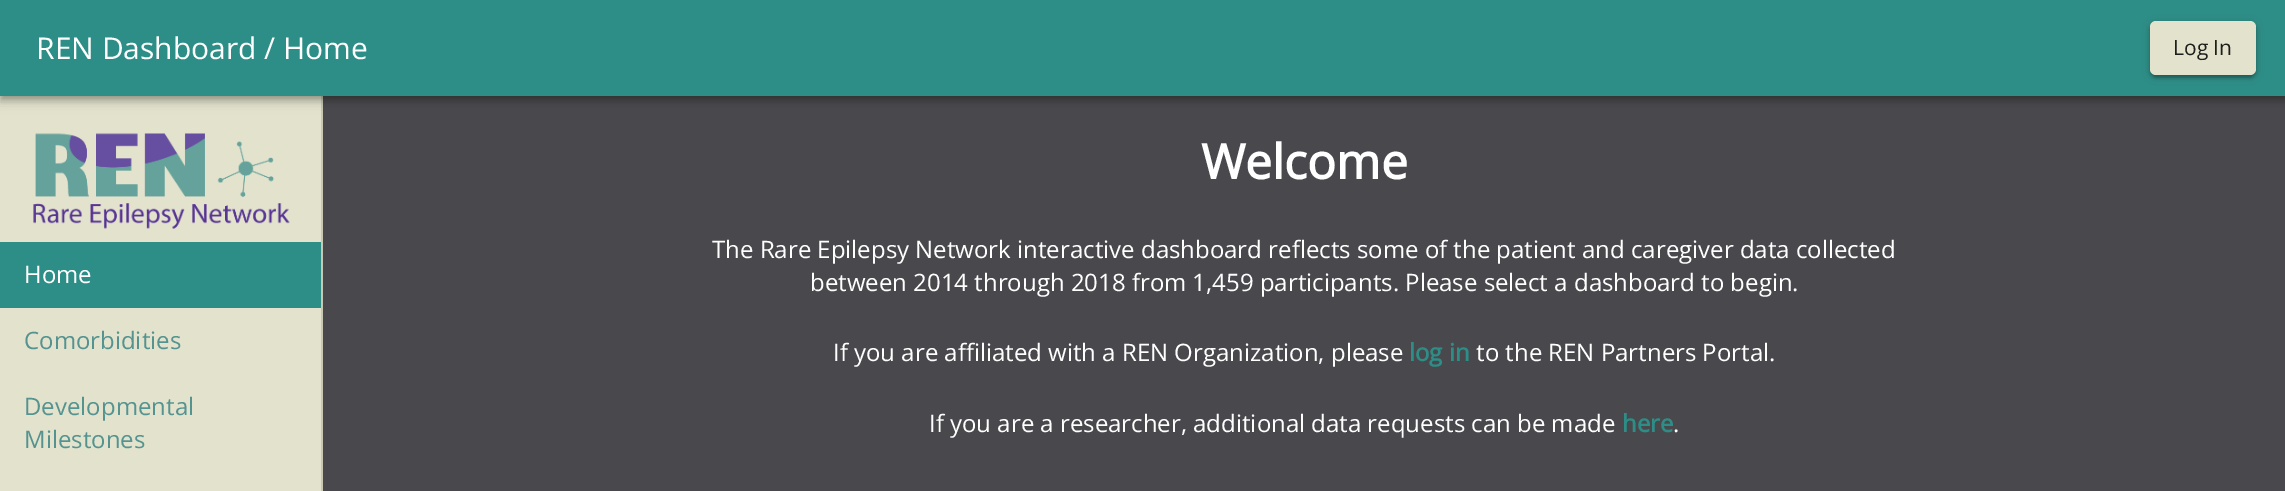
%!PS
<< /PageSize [2285 491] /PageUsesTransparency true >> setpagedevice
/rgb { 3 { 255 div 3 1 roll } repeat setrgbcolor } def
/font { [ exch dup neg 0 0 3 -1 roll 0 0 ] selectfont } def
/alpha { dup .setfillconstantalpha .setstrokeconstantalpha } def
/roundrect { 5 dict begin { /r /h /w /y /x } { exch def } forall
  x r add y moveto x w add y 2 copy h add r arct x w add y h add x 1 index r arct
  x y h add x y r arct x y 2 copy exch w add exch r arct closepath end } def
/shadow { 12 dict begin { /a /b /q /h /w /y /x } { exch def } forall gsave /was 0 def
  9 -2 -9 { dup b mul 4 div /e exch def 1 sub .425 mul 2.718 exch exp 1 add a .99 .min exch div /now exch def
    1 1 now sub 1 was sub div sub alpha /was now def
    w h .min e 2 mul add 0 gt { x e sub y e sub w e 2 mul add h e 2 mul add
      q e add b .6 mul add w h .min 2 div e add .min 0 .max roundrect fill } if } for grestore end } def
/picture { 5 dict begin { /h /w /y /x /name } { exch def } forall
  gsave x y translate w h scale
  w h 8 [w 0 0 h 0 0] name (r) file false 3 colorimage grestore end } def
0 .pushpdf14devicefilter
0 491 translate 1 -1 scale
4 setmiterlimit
73 73 77 rgb
0 0 2285 491 rectfill
227 227 205 rgb
0 96 321 395 rectfill
200 200 180 rgb
321 96 2 395 rectfill
0 0 0 rgb
0 2 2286 96 0 7.5 0.12 shadow
0 6 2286 96 0 4 0.14 shadow
2 5 2283 93 0 3 0.2 shadow
45 142 135 rgb
0 0 2285 96 rectfill
0 0 0 rgb
2153 29 100 48 3 1 0.12 shadow
2150 24 106 54 6 1.5 0.14 shadow
2150 23 106 54 6 4 0.2 shadow
227 227 205 rgb
2150 21 106 54 6 roundrect fill
(img/1.rgb) 33 133 257 96 picture
45 142 135 rgb
0 242 321 66 rectfill
/OpenSans-Regular 30 font
255 255 255 rgb
36 59 moveto (REN Dashboard / Home) show
/OpenSans-Regular 21 font
30 30 27 rgb
2173 55 moveto (Log In) show
/OpenSans-Regular 24 font
255 255 255 rgb
24 283 moveto (Home) show
85 147 145 rgb
[
  [(Comorbidities) 24 349]
  [(Developmental) 24 415]
  [(Milestones) 24 448]
] { aload pop moveto show } forall
/OpenSans-Bold 48 font
255 255 255 rgb
1201 179 moveto (Welcome) show
/OpenSans-Regular 24 font
[
  [(The Rare Epilepsy Network interactive dashboard reflects some of the patient and caregiver data collected) 712 258]
  [(between 2014 through 2018 from 1,459 participants. Please select a dashboard to begin.) 810 291]
  [(If you are affiliated with a REN Organization, please) 833 361]
] { aload pop moveto show } forall
/OpenSans-Bold 24 font
45 142 135 rgb
1409 361 moveto (log in) show
/OpenSans-Regular 24 font
255 255 255 rgb
1476 361 moveto (to the REN Partners Portal.) show
929 432 moveto (If you are a researcher, additional data requests can be made) show
/OpenSans-Bold 24 font
45 142 135 rgb
1622 432 moveto (here) show
/OpenSans-Regular 24 font
255 255 255 rgb
1673 432 moveto (.) show
.poppdf14devicefilter showpage
